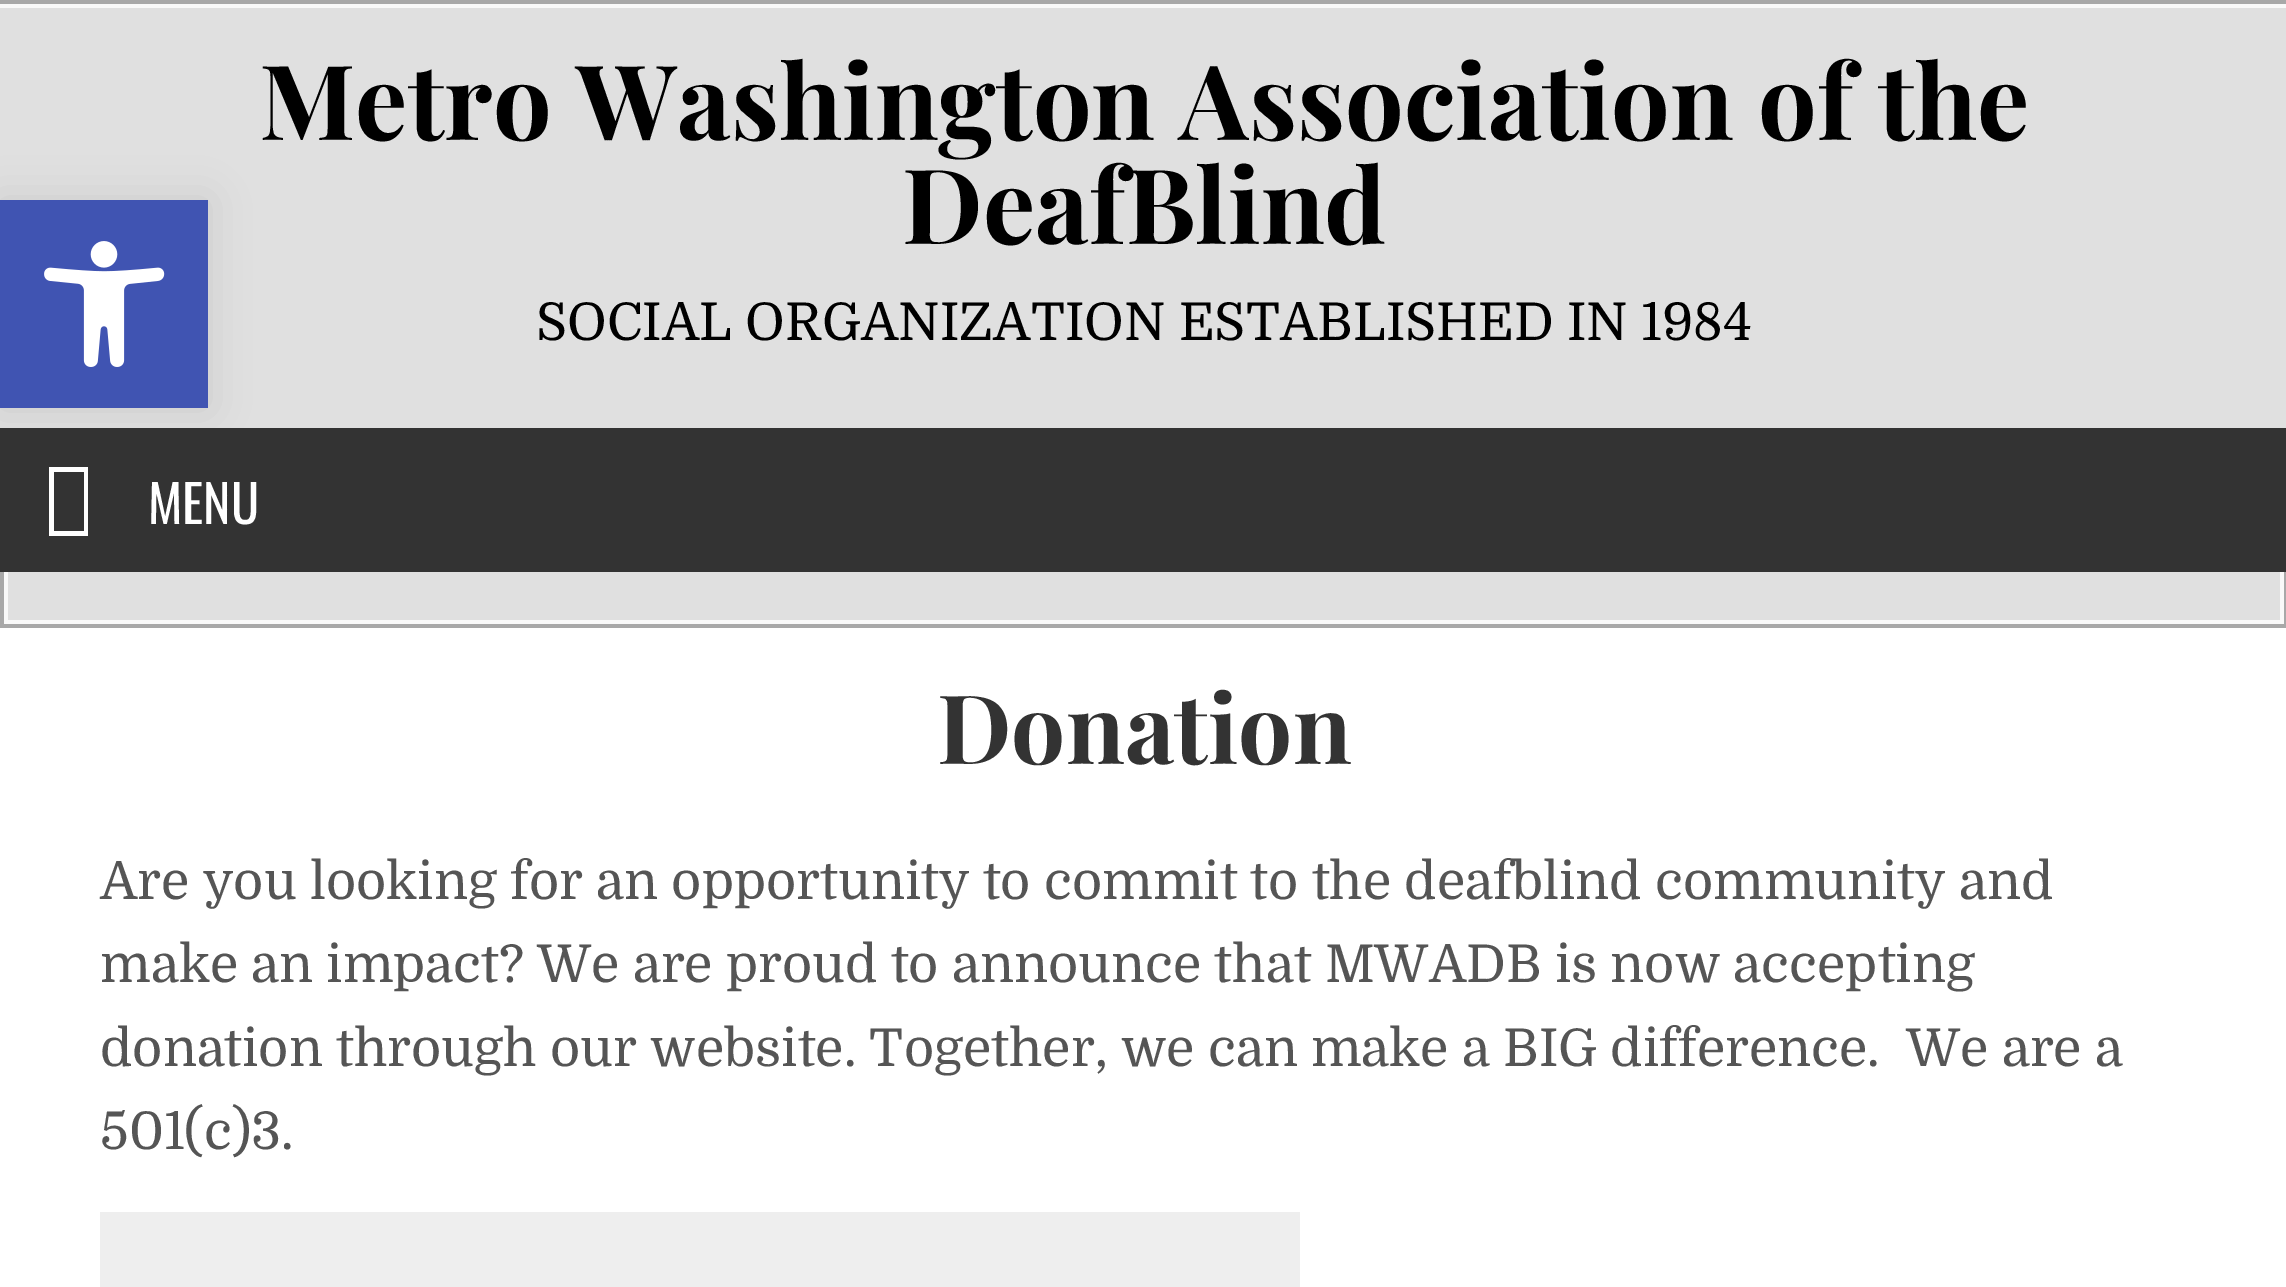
%!PS
<< /PageSize [2286 1287] /PageUsesTransparency true >> setpagedevice
/rgb { 3 { 255 div 3 1 roll } repeat setrgbcolor } def
/font { [ exch dup neg 0 0 3 -1 roll 0 0 ] selectfont } def
/alpha { dup .setfillconstantalpha .setstrokeconstantalpha } def
/roundrect { 5 dict begin { /r /h /w /y /x } { exch def } forall
  x r add y moveto x w add y 2 copy h add r arct x w add y h add x 1 index r arct
  x y h add x y r arct x y 2 copy exch w add exch r arct closepath end } def
/shadow { 12 dict begin { /a /b /q /h /w /y /x } { exch def } forall gsave /was 0 def
  9 -2 -9 { dup b mul 4 div /e exch def 1 sub .425 mul 2.718 exch exp 1 add a .99 .min exch div /now exch def
    1 1 now sub 1 was sub div sub alpha /was now def
    w h .min e 2 mul add 0 gt { x e sub y e sub w e 2 mul add h e 2 mul add
      q e add b .6 mul add w h .min 2 div e add .min 0 .max roundrect fill } if } for grestore end } def
/picture { 5 dict begin { /h /w /y /x /name } { exch def } forall
  gsave x y translate w h scale
  w h 8 [w 0 0 h 0 0] name (r) file false 3 colorimage grestore end } def
0 .pushpdf14devicefilter
0 1287 translate 1 -1 scale
4 setmiterlimit
255 255 255 rgb
0 0 2286 1287 rectfill
[
  [0 8 2286 420 224 224 224]
  [0 0 2286 4 168 168 168]
  [0 4 2286 4 249 249 249]
  [0 428 2286 144 51 51 51]
] { aload pop rgb rectfill } forall
255 255 255 rgb
49 536 moveto 49 467 lineto 88 467 lineto 88 536 lineto closepath 54 531 moveto 84 531 lineto 84 472 lineto 54 472 lineto closepath fill
[
  [8 572 2272 48 224 224 224]
  [2284 572 2 56 168 168 168]
  [0 624 2286 4 168 168 168]
  [0 572 4 56 168 168 168]
  [2280 572 4 52 249 249 249]
  [4 620 2280 4 249 249 249]
  [4 572 4 52 249 249 249]
  [100 1212 1200 75 238 238 238]
] { aload pop rgb rectfill } forall
0 0 0 rgb
0 200 208 208 0 20 0.1 shadow
64 84 178 rgb
0 200 208 208 rectfill
(img/1.rgb) 44 241 121 126 picture
/PlayfairDisplay-Bold 104 font
0 0 0 rgb
259 140 moveto (Metro Washington Association of the) show
902 244 moveto (DeafBlind) show
/Domine-Regular 52 font
536 340 moveto (SOCIAL ORGANIZATION ESTABLISHED IN 1984) show
/Oswald-Regular 52 font
255 255 255 rgb
148 524 moveto (MENU) show
/PlayfairDisplay-Bold 96 font
51 51 51 rgb
937 764 moveto (Donation) show
/Domine-Regular 52 font
85 85 85 rgb
[
  [(Are you looking for an opportunity to commit to the deafblind community and) 100 899]
  [(make an impact? We are proud to announce that MWADB is now accepting) 100 982]
  [(donation through our website. Together, we can make a BIG difference.  We are a) 100 1066]
  [(501\(c\)3.) 100 1149]
] { aload pop moveto show } forall
.poppdf14devicefilter showpage
